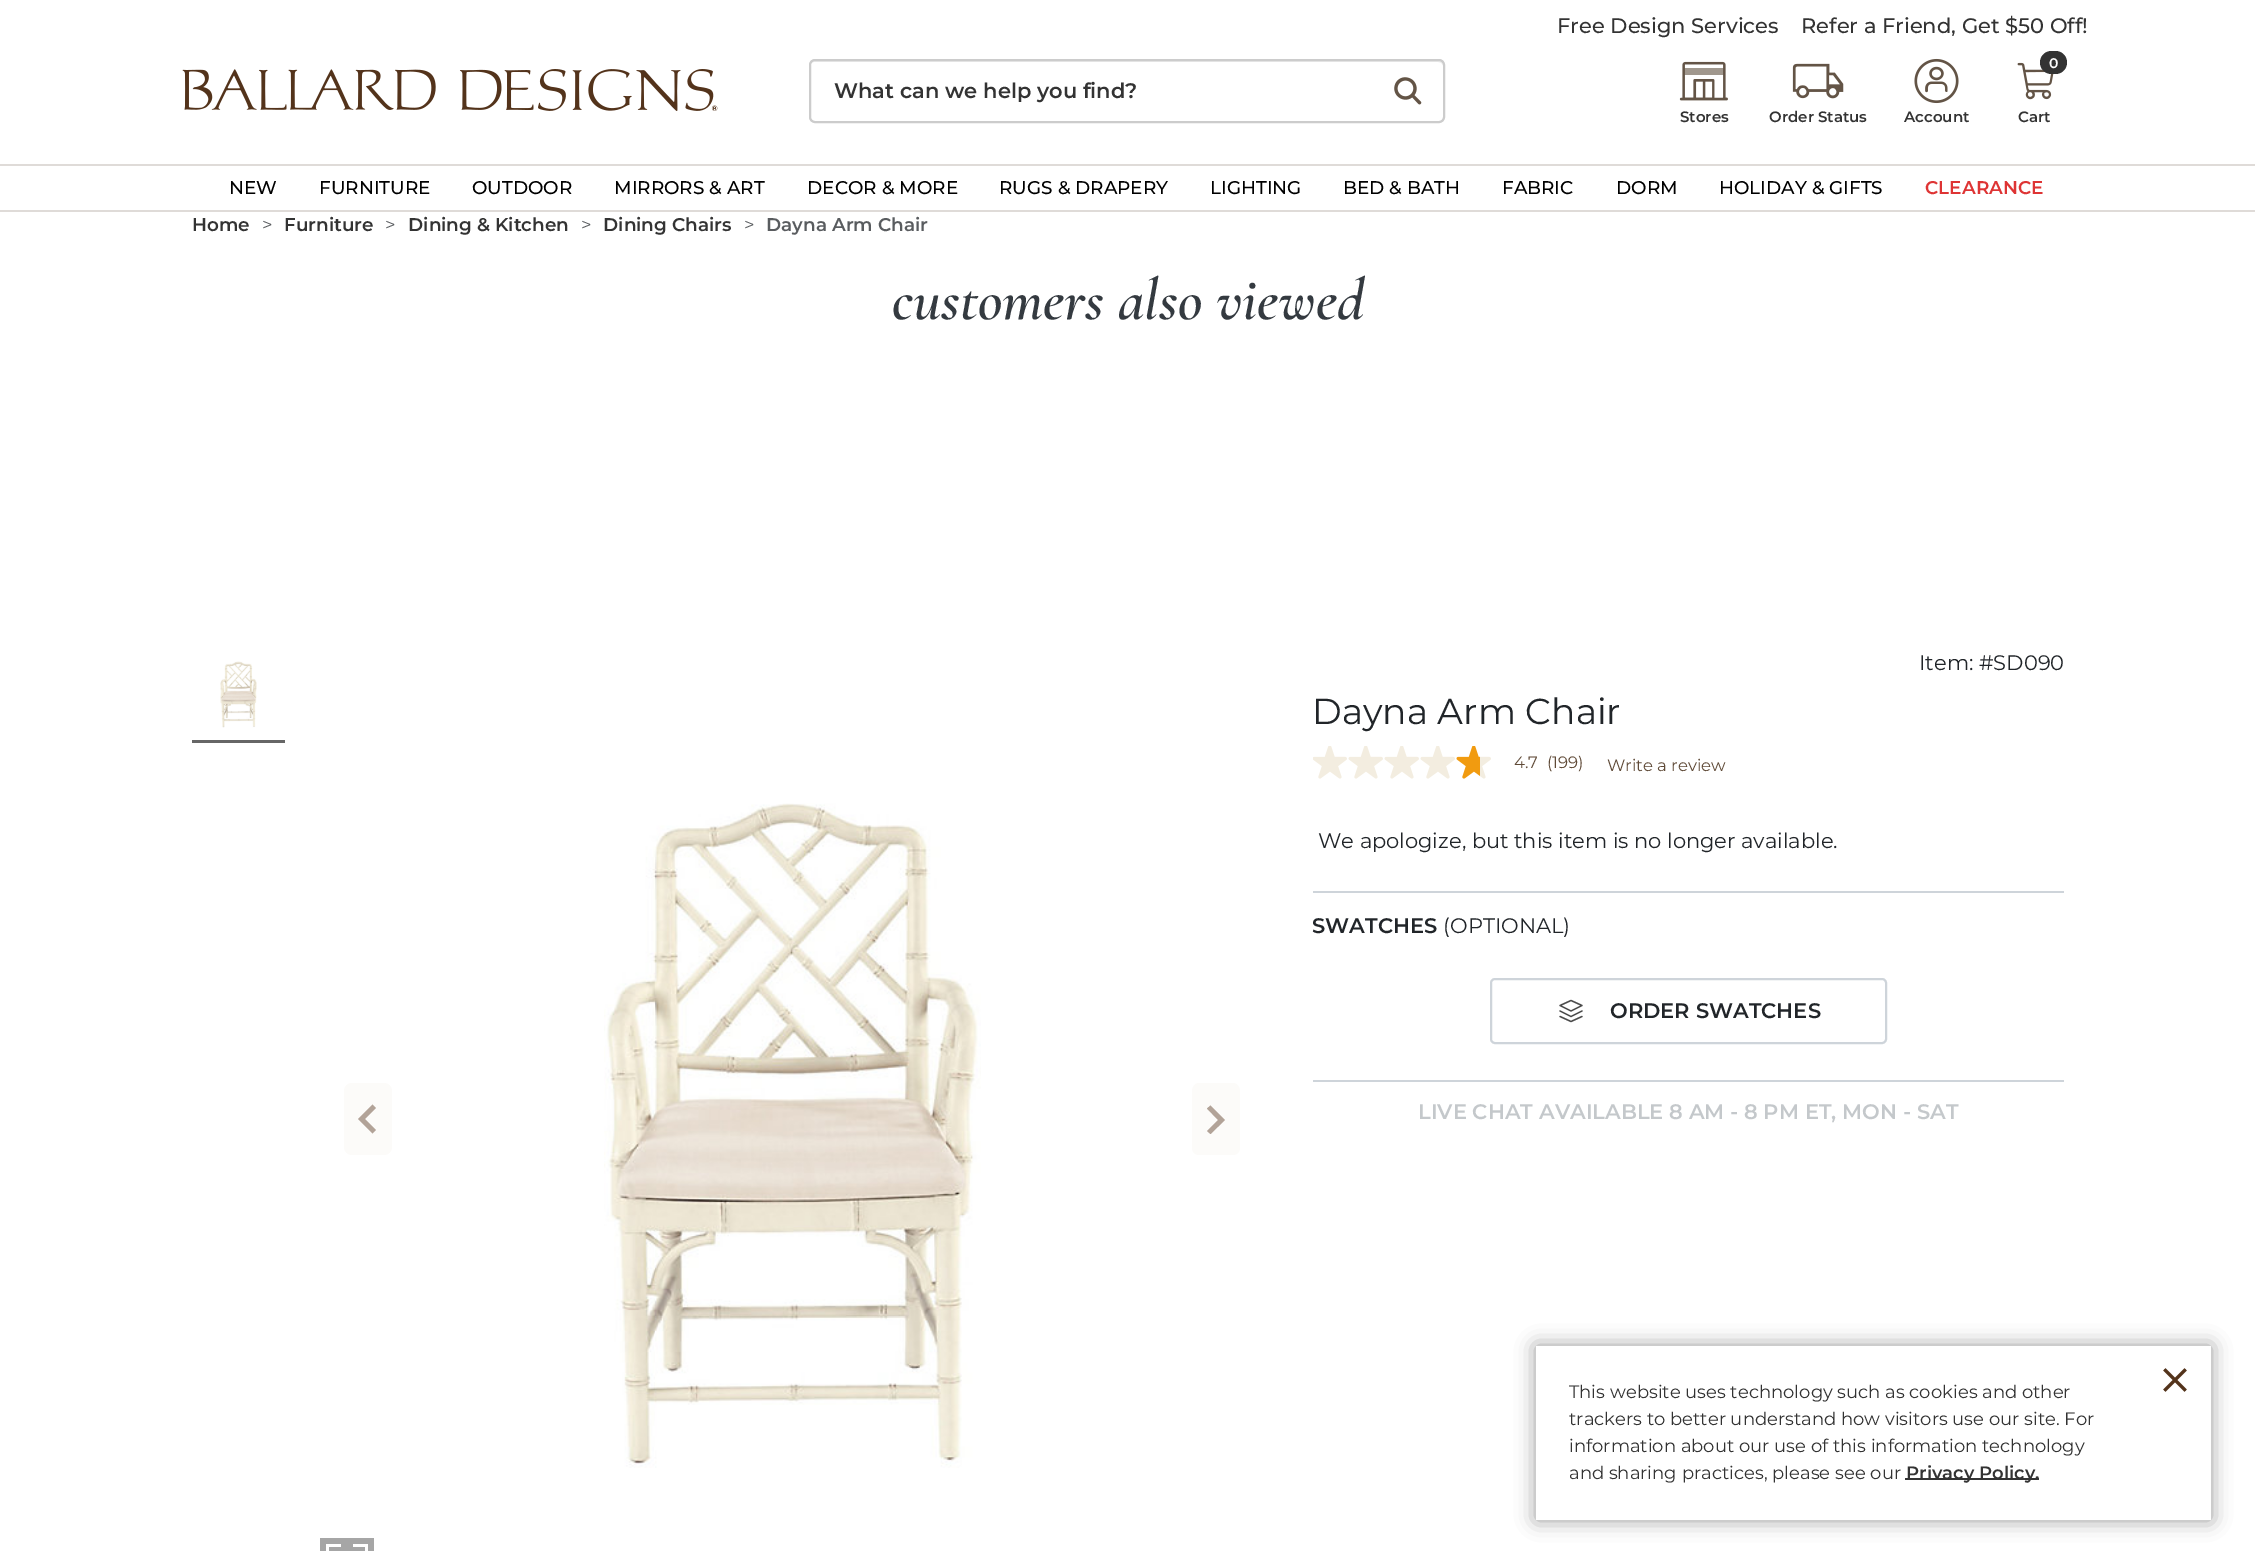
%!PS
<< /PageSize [2255 1551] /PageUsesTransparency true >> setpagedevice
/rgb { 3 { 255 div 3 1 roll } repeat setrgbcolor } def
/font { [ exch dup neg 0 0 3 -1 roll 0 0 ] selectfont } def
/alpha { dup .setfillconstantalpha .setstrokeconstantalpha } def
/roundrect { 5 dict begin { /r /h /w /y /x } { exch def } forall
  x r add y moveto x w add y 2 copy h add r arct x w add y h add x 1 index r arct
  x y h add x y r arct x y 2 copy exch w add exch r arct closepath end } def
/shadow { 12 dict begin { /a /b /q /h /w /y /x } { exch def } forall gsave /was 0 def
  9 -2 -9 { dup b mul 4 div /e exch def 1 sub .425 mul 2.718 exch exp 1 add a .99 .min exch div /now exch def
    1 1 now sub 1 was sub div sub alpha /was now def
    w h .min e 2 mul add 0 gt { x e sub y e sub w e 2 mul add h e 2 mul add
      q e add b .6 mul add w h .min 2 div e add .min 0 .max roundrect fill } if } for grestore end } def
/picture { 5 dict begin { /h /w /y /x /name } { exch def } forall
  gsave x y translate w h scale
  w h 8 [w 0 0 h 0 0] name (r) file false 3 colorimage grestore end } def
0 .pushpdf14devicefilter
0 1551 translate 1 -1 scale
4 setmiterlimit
255 255 255 rgb
0 0 2255 1551 rectfill
223 219 216 rgb
0 210 2255 2 rectfill
(img/1.rgb) 182 69 536 42 picture
(img/2.rgb) 1394 77 28 28 picture
236 236 236 rgb
814 62 moveto 1438 62 lineto 1441 62 1443 64 1443 66 curveto 1443 63 1441 60 1438 60 curveto 815 60 lineto 812 60 810 63 810 66 curveto 810 64 812 62 814 62 curveto closepath fill
204 204 204 rgb
2 setlinewidth
810 60 634 62 5 roundrect stroke
(img/3.rgb) 1679 61 49 40 picture
(img/4.rgb) 1792 63 52 36 picture
(img/5.rgb) 1914 58 45 46 picture
(img/6.rgb) 2017 62 37 38 picture
51 51 51 rgb
2040 51 27 23 11.5 roundrect fill
223 219 216 rgb
0 164 2255 2 rectfill
102 102 102 rgb
192 740 93 3 rectfill
(img/7.rgb) 220 661 37 67 picture
(img/8.rgb) 604 803 377 665 picture
252 251 249 rgb
344 1083 48 72 8 roundrect fill
178 163 152 rgb
376 1108 moveto 365 1119 lineto 376 1130 lineto 372.5 1133.5 lineto 358 1119 lineto 372.5 1104.5 lineto closepath fill
252 251 249 rgb
1233 1155 moveto 1199 1155 lineto 1195 1155 1192 1152 1192 1148 curveto 1192 1091 lineto 1192 1087 1195 1083 1199 1083 curveto 1233 1083 lineto 1237 1083 1240 1087 1240 1091 curveto 1240 1148 lineto 1240 1152 1237 1155 1233 1155 curveto closepath fill
178 163 152 rgb
1207 1131 moveto 1218 1120 lineto 1207 1108.5 lineto 1210.5 1105.5 lineto 1225 1120 lineto 1210.5 1134 lineto closepath fill
[
  [320 1538 54 13 166 166 166]
  [326 1544 15 3 255 255 255]
  [326 1544 3 7 255 255 255]
  [353 1544 15 3 255 255 255]
  [365 1544 3 7 255 255 255]
] { aload pop rgb rectfill } forall
(img/9.rgb) 1313 746 34 33 picture
(img/10.rgb) 1348 746 35 33 picture
(img/10.rgb) 1384 746 35 33 picture
(img/10.rgb) 1420 746 35 33 picture
(img/11.rgb) 1456 746 35 33 picture
206 212 218 rgb
1313 891 751 2 rectfill
1313 1080 751 2 rectfill
1491 979 395 64 4 roundrect stroke
76 76 76 rgb
1.3 setlinewidth
1 setlinecap
1 setlinejoin
1571 1000.5 moveto 1560 1005.5 lineto 1571 1011 lineto 1582 1005.5 lineto closepath 1560 1016.5 moveto 1571 1021.5 lineto 1582 1016.5 lineto 1560 1011 moveto 1571 1016.5 lineto 1582 1011 lineto stroke
0 0 0 rgb
1536 1346 675 174 0 10 0.4 shadow
255 255 255 rgb
1536 1346 675 174 rectfill
(img/12.rgb) 2163 1368 24 24 picture
51 51 51 rgb
1905 1478 134 2 rectfill
/Montserrat-Medium 21 font
1557 33 moveto (Free Design Services) show
1801 33 moveto (Refer a Friend, Get $50 Off!) show
/Montserrat-SemiBold 21 font
834 98 moveto (What can we help you find?) show
/Montserrat-SemiBold 15 font
[
  [(Stores) 1680 122]
  [(Order Status) 1769 122]
  [(Account) 1904 122]
] { aload pop moveto show } forall
/Montserrat-SemiBold 14 font
255 255 255 rgb
2049 68 moveto (0) show
/Montserrat-SemiBold 15 font
51 51 51 rgb
2018 122 moveto (Cart) show
/Montserrat-Medium 18.4 font
0 0 0 rgb
[
  [(NEW) 229 194]
  [(FURNITURE) 319 194]
  [(OUTDOOR) 472 194]
  [(MIRRORS & ART) 614 194]
  [(DECOR & MORE) 807 194]
  [(RUGS & DRAPERY) 999 194]
  [(LIGHTING) 1210 194]
  [(BED & BATH) 1343 194]
  [(FABRIC) 1502 194]
  [(DORM) 1616 194]
  [(HOLIDAY & GIFTS) 1719 194]
] { aload pop moveto show } forall
/Montserrat-SemiBold 18.4 font
222 52 52 rgb
1925 194 moveto (CLEARANCE) show
51 51 51 rgb
192 231 moveto (Home) show
/Montserrat-Regular 18.4 font
89 92 95 rgb
262 231 moveto (>) show
/Montserrat-SemiBold 18.4 font
51 51 51 rgb
284 231 moveto (Furniture) show
/Montserrat-Regular 18.4 font
89 92 95 rgb
385 231 moveto (>) show
/Montserrat-SemiBold 18.4 font
51 51 51 rgb
408 231 moveto (Dining & Kitchen) show
/Montserrat-Regular 18.4 font
89 92 95 rgb
581 231 moveto (>) show
/Montserrat-SemiBold 18.4 font
51 51 51 rgb
603 231 moveto (Dining Chairs) show
/Montserrat-Regular 18.4 font
89 92 95 rgb
744 231 moveto (>) show
/Montserrat-SemiBold 18.4 font
766 231 moveto (Dayna Arm Chair) show
/Cormorant-SemiBoldItalic 60 font
52 58 64 rgb
892 319 moveto (customers also viewed) show
/Montserrat-Regular 21 font
33 37 41 rgb
1919 670 moveto (Item: #SD090) show
/Montserrat-Regular 36 font
1312 724 moveto (Dayna Arm Chair) show
/Montserrat-Regular 16.5 font
95 74 55 rgb
[
  [(4.7) 1514 768]
  [(\(199\)) 1547 768]
  [(Write a review) 1607 771]
] { aload pop moveto show } forall
/Montserrat-Regular 21 font
33 37 41 rgb
1318 848 moveto (We apologize, but this item is no longer available.) show
/Montserrat-SemiBold 21 font
1312 933 moveto (SWATCHES) show
/Montserrat-Regular 21 font
1443 933 moveto (\(OPTIONAL\)) show
/Montserrat-SemiBold 21 font
1610 1018 moveto (ORDER SWATCHES) show
196 200 203 rgb
1418 1119 moveto (LIVE CHAT AVAILABLE 8 AM - 8 PM ET, MON - SAT) show
/Montserrat-Regular 18 font
51 51 51 rgb
[
  [(This website uses technology such as cookies and other) 1569 1398]
  [(trackers to better understand how visitors use our site. For) 1569 1425]
  [(information about our use of this information technology) 1569 1452]
  [(and sharing practices, please see our) 1569 1479]
] { aload pop moveto show } forall
/Montserrat-SemiBold 18 font
1906 1479 moveto (Privacy Policy.) show
.poppdf14devicefilter showpage
